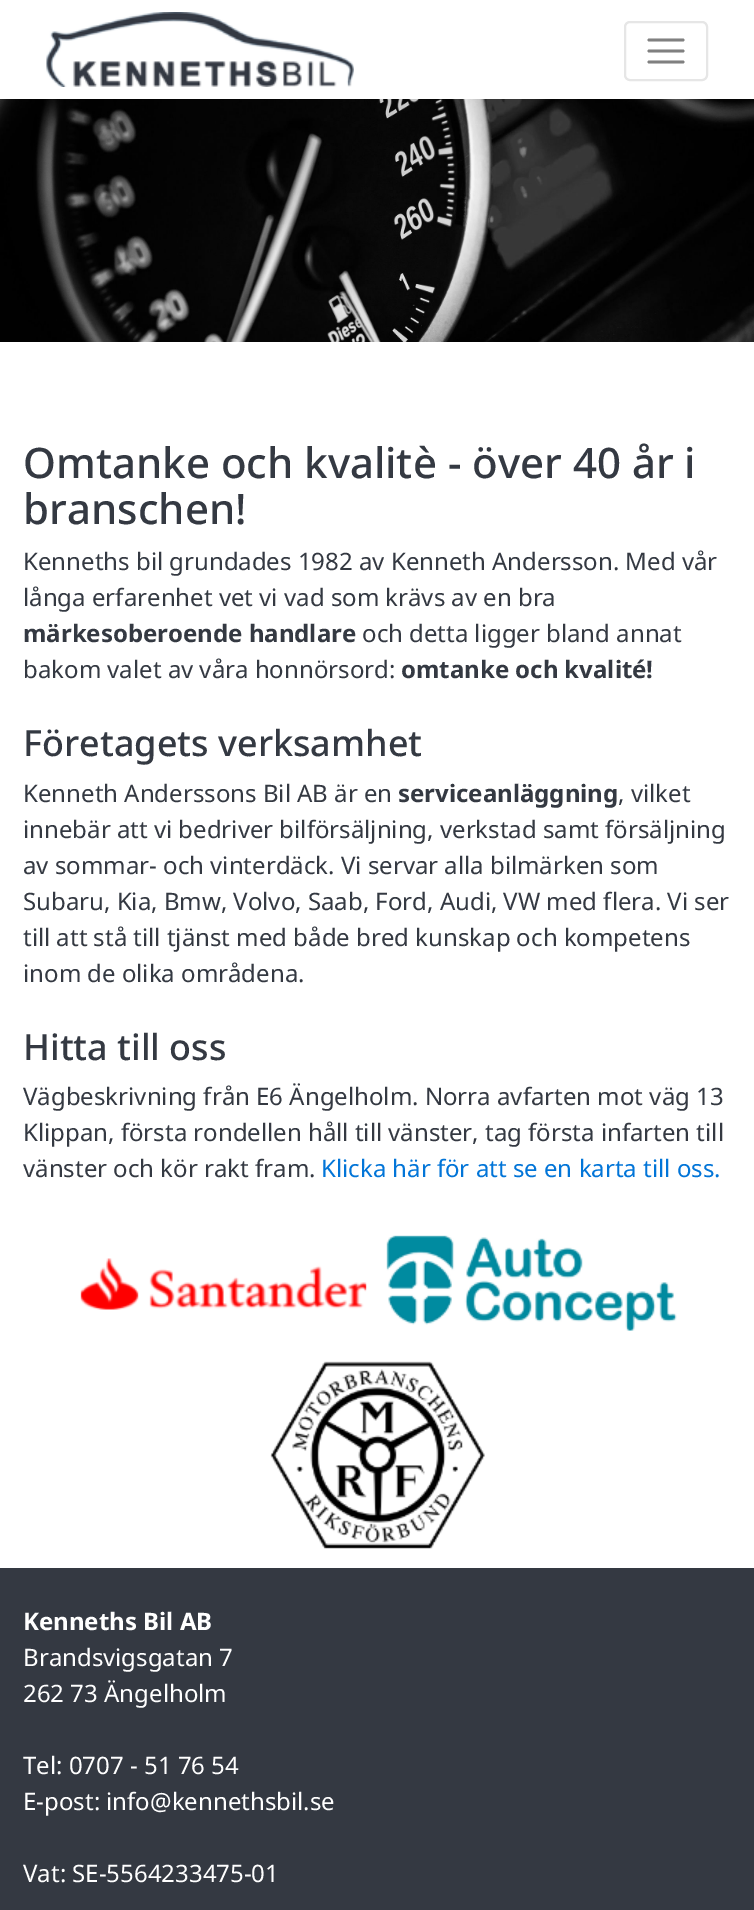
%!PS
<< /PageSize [754 1910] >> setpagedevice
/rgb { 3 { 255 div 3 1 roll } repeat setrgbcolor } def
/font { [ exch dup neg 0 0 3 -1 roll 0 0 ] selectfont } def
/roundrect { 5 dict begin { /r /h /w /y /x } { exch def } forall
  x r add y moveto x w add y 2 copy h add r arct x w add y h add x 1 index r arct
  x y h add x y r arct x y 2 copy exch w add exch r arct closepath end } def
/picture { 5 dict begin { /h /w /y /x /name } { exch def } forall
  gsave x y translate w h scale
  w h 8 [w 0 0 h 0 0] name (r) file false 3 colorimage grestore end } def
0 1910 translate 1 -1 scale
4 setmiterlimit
255 255 255 rgb
0 0 754 1910 rectfill
(img/1.rgb) 46 12 308 75 picture
230 230 230 rgb
2 setlinewidth
625 22 82 58 5 roundrect stroke
128 128 128 rgb
2.8 setlinewidth
1 setlinecap
649 40 moveto 683 40 lineto 649 51 moveto 683 51 lineto 649 62 moveto 683 62 lineto stroke
(img/2.rgb) 0 99 754 243 picture
(img/3.rgb) 80 1258 287 52 picture
(img/4.rgb) 386 1235 291 96 picture
(img/5.rgb) 270 1361 215 188 picture
52 57 66 rgb
0 1568 754 342 rectfill
/NotoSans-Medium 42 font
23 478 moveto (Omtanke och kvalitè - över 40 år i) show
23 524 moveto (branschen!) show
/NotoSans-Regular 24 font
23 570 moveto (Kenneths bil grundades 1982 av Kenneth Andersson. Med vår) show
23 606 moveto (långa erfarenhet vet vi vad som krävs av en bra) show
/NotoSans-Bold 24 font
23 642 moveto (märkesoberoende handlare) show
/NotoSans-Regular 24 font
362 642 moveto (och detta ligger bland annat) show
23 678 moveto (bakom valet av våra honnörsord:) show
/NotoSans-Bold 24 font
401 678 moveto (omtanke och kvalité!) show
/NotoSans-Medium 36 font
23 756 moveto (Företagets verksamhet) show
/NotoSans-Regular 24 font
23 802 moveto (Kenneth Anderssons Bil AB är en) show
/NotoSans-Bold 24 font
398 802 moveto (serviceanläggning) show
/NotoSans-Regular 24 font
[
  [(, vilket) 618 802]
  [(innebär att vi bedriver bilförsäljning, verkstad samt försäljning) 23 838]
  [(av sommar- och vinterdäck. Vi servar alla bilmärken som) 23 874]
  [(Subaru, Kia, Bmw, Volvo, Saab, Ford, Audi, VW med flera. Vi ser) 23 910]
  [(till att stå till tjänst med både bred kunskap och kompetens) 23 946]
  [(inom de olika områdena.) 23 982]
] { aload pop moveto show } forall
/NotoSans-Medium 36 font
23 1060 moveto (Hitta till oss) show
/NotoSans-Regular 24 font
[
  [(Vägbeskrivning från E6 Ängelholm. Norra avfarten mot väg 13) 23 1105]
  [(Klippan, första rondellen håll till vänster, tag första infarten till) 23 1141]
  [(vänster och kör rakt fram.) 23 1177]
] { aload pop moveto show } forall
2 117 216 rgb
321 1177 moveto (Klicka här för att se en karta till oss.) show
/NotoSans-Bold 24 font
255 255 255 rgb
23 1630 moveto (Kenneths Bil AB) show
/NotoSans-Regular 24 font
[
  [(Brandsvigsgatan 7) 23 1666]
  [(262 73 Ängelholm) 23 1702]
  [(Tel: 0707 - 51 76 54) 23 1774]
  [(E-post: info@kennethsbil.se) 23 1810]
  [(Vat: SE-5564233475-01) 23 1882]
] { aload pop moveto show } forall
showpage
